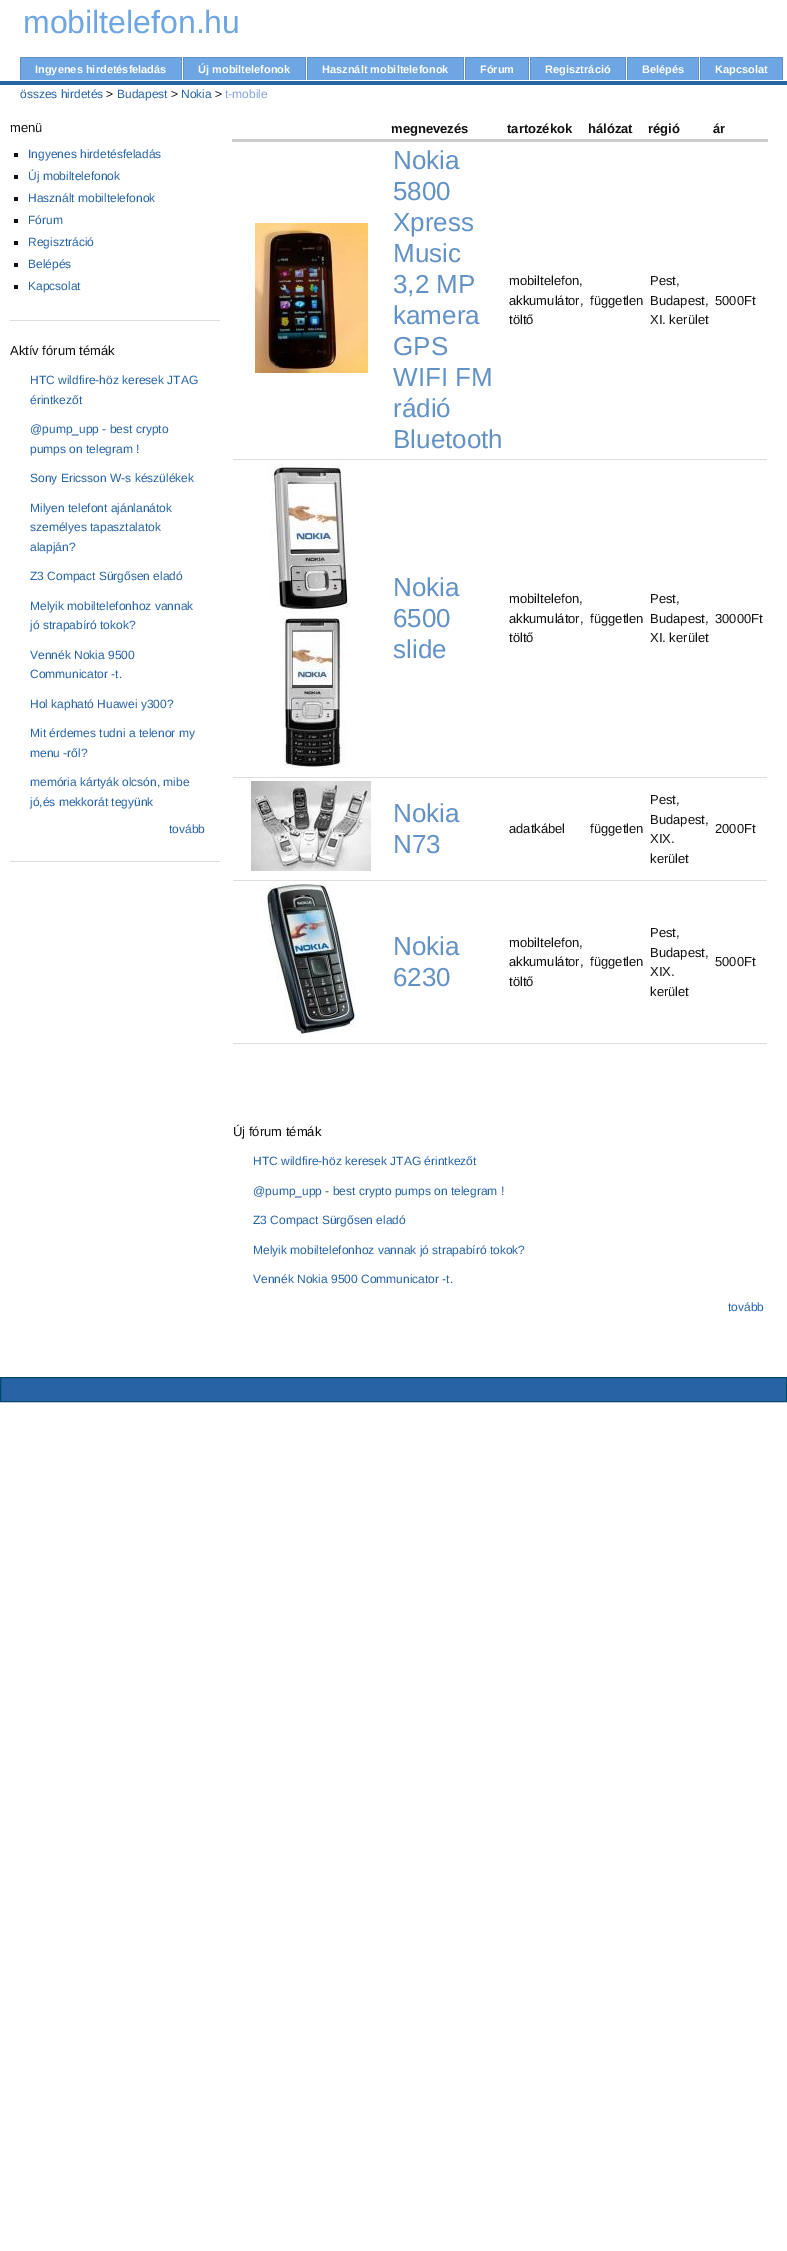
%!PS
<< /PageSize [787 2251] >> setpagedevice
/rgb { 3 { 255 div 3 1 roll } repeat setrgbcolor } def
/font { [ exch dup neg 0 0 3 -1 roll 0 0 ] selectfont } def
/picture { 5 dict begin { /h /w /y /x /name } { exch def } forall
  gsave x y translate w h scale
  w h 8 [w 0 0 h 0 0] name (r) file false 3 colorimage grestore end } def
0 2251 translate 1 -1 scale
4 setmiterlimit
255 255 255 rgb
0 0 787 2251 rectfill
[
  [0 81 787 4 39 99 165]
  [21 58 160 22 109 166 226]
  [20 57 162 1 97 145 197]
  [181 57 1 23 97 145 197]
  [20 57 1 23 97 145 197]
  [184 58 121 22 109 166 226]
  [183 57 123 1 97 145 197]
  [305 57 1 23 97 145 197]
  [183 57 1 23 97 145 197]
  [308 58 155 22 109 166 226]
  [307 57 157 1 97 145 197]
  [463 57 1 23 97 145 197]
  [307 57 1 23 97 145 197]
  [466 58 62 22 109 166 226]
  [465 57 64 1 97 145 197]
  [528 57 1 23 97 145 197]
  [465 57 1 23 97 145 197]
  [531 58 94 22 109 166 226]
  [530 57 96 1 97 145 197]
  [625 57 1 23 97 145 197]
  [530 57 1 23 97 145 197]
  [628 58 70 22 109 166 226]
  [627 57 72 1 97 145 197]
  [698 57 1 23 97 145 197]
  [627 57 1 23 97 145 197]
  [701 58 81 22 109 166 226]
  [700 57 83 1 97 145 197]
  [782 57 1 23 97 145 197]
  [700 57 1 23 97 145 197]
  [10 320 210 1 221 221 221]
  [14 153 4 4 17 17 17]
  [14 175 4 4 17 17 17]
  [14 197 4 4 17 17 17]
  [14 219 4 4 17 17 17]
  [14 241 4 4 17 17 17]
  [14 263 4 4 17 17 17]
  [14 285 4 4 17 17 17]
  [10 861 210 1 221 221 221]
  [232 139 536 3 204 204 204]
] { aload pop rgb rectfill } forall
(img/1.rgb) 255 223 113 150 picture
221 221 221 rgb
233 459 534 1 rectfill
(img/2.rgb) 269 463 80 150 picture
(img/3.rgb) 283 618 64 150 picture
233 777 534 1 rectfill
(img/4.rgb) 251 781 120 90 picture
233 880 534 1 rectfill
(img/5.rgb) 261 884 95 150 picture
233 1043 534 1 rectfill
39 99 165 rgb
0.5 1377.5 moveto 786.5 1377.5 lineto 786.5 1401.5 lineto 0.5 1401.5 lineto closepath gsave fill grestore
0 73 105 rgb
stroke
/LiberationSans-Regular 32 font
109 166 226 rgb
23 33 moveto (mobiltelefon.hu) show
/LiberationSans-Bold 11 font
255 255 255 rgb
[
  [(Ingyenes hirdetésfeladás) 35 73]
  [(Új mobiltelefonok) 198 73]
  [(Használt mobiltelefonok) 322 73]
  [(Fórum) 480 73]
  [(Regisztráció) 545 73]
  [(Belépés) 642 73]
  [(Kapcsolat) 715 73]
] { aload pop moveto show } forall
/LiberationSans-Regular 12 font
39 99 165 rgb
20 98 moveto (összes hirdetés) show
17 17 17 rgb
106 98 moveto (>) show
39 99 165 rgb
117 98 moveto (Budapest) show
17 17 17 rgb
171 98 moveto (>) show
39 99 165 rgb
181 98 moveto (Nokia) show
17 17 17 rgb
215 98 moveto (>) show
137 163 228 rgb
225 98 moveto (t-mobile) show
/LiberationSans-Regular 13 font
17 17 17 rgb
10 132 moveto (menü) show
/LiberationSans-Regular 12 font
39 99 165 rgb
[
  [(Ingyenes hirdetésfeladás) 28 158]
  [(Új mobiltelefonok) 28 180]
  [(Használt mobiltelefonok) 28 202]
  [(Fórum) 28 224]
  [(Regisztráció) 28 246]
  [(Belépés) 28 268]
  [(Kapcsolat) 28 290]
] { aload pop moveto show } forall
/LiberationSans-Regular 13 font
17 17 17 rgb
10 355 moveto (Aktív fórum témák) show
/LiberationSans-Regular 12 font
39 99 165 rgb
[
  [(HTC wildfire-höz keresek JTAG) 30 384]
  [(érintkezőt) 30 404]
  [(@pump_upp - best crypto) 30 433]
  [(pumps on telegram !) 30 453]
  [(Sony Ericsson W-s készülékek) 30 482]
  [(Milyen telefont ajánlanátok) 30 512]
  [(személyes tapasztalatok) 30 531]
  [(alapján?) 30 551]
  [(Z3 Compact Sürgősen eladó) 30 580]
  [(Melyik mobiltelefonhoz vannak) 30 610]
  [(jó strapabíró tokok?) 30 629]
  [(Vennék Nokia 9500) 30 659]
  [(Communicator -t.) 30 678]
  [(Hol kapható Huawei y300?) 30 708]
  [(Mit érdemes tudni a telenor my) 30 737]
  [(menu -ről?) 30 757]
  [(memória kártyák olcsón, mibe) 30 786]
  [(jó,és mekkorát tegyünk) 30 806]
  [(tovább) 169 833]
] { aload pop moveto show } forall
/LiberationSans-Bold 13 font
17 17 17 rgb
[
  [(megnevezés) 391 133]
  [(tartozékok) 507 133]
  [(hálózat) 588 133]
  [(régió) 648 133]
  [(ár) 713 133]
] { aload pop moveto show } forall
/LiberationSans-Regular 26 font
97 145 197 rgb
[
  [(Nokia) 393 169]
  [(5800) 393 200]
  [(Xpress) 393 231]
  [(Music) 393 262]
  [(3,2 MP) 393 293]
  [(kamera) 393 324]
  [(GPS) 393 355]
  [(WIFI FM) 393 386]
  [(rádió) 393 417]
  [(Bluetooth) 393 448]
] { aload pop moveto show } forall
/LiberationSans-Regular 13 font
17 17 17 rgb
[
  [(mobiltelefon,) 509 285]
  [(akkumulátor,) 509 305]
  [(töltő) 509 324]
  [(független) 590 305]
  [(Pest,) 650 285]
  [(Budapest,) 650 305]
  [(XI. kerület) 650 324]
  [(5000Ft) 715 305]
] { aload pop moveto show } forall
/LiberationSans-Regular 26 font
97 145 197 rgb
[
  [(Nokia) 393 596]
  [(6500) 393 627]
  [(slide) 393 658]
] { aload pop moveto show } forall
/LiberationSans-Regular 13 font
17 17 17 rgb
[
  [(mobiltelefon,) 509 603]
  [(akkumulátor,) 509 623]
  [(töltő) 509 642]
  [(független) 590 623]
  [(Pest,) 650 603]
  [(Budapest,) 650 623]
  [(XI. kerület) 650 642]
  [(30000Ft) 715 623]
] { aload pop moveto show } forall
/LiberationSans-Regular 26 font
97 145 197 rgb
393 822 moveto (Nokia) show
393 853 moveto (N73) show
/LiberationSans-Regular 13 font
17 17 17 rgb
[
  [(adatkábel) 509 833]
  [(független) 590 833]
  [(Pest,) 650 804]
  [(Budapest,) 650 824]
  [(XIX.) 650 843]
  [(kerület) 650 863]
  [(2000Ft) 715 833]
] { aload pop moveto show } forall
/LiberationSans-Regular 26 font
97 145 197 rgb
393 955 moveto (Nokia) show
393 986 moveto (6230) show
/LiberationSans-Regular 13 font
17 17 17 rgb
[
  [(mobiltelefon,) 509 947]
  [(akkumulátor,) 509 966]
  [(töltő) 509 986]
  [(független) 590 966]
  [(Pest,) 650 937]
  [(Budapest,) 650 957]
  [(XIX.) 650 976]
  [(kerület) 650 996]
  [(5000Ft) 715 966]
  [(Új fórum témák) 233 1136]
] { aload pop moveto show } forall
/LiberationSans-Regular 12 font
39 99 165 rgb
[
  [(HTC wildfire-höz keresek JTAG érintkezőt) 253 1165]
  [(@pump_upp - best crypto pumps on telegram !) 253 1195]
  [(Z3 Compact Sürgősen eladó) 253 1224]
  [(Melyik mobiltelefonhoz vannak jó strapabíró tokok?) 253 1254]
  [(Vennék Nokia 9500 Communicator -t.) 253 1283]
  [(tovább) 728 1311]
] { aload pop moveto show } forall
showpage
